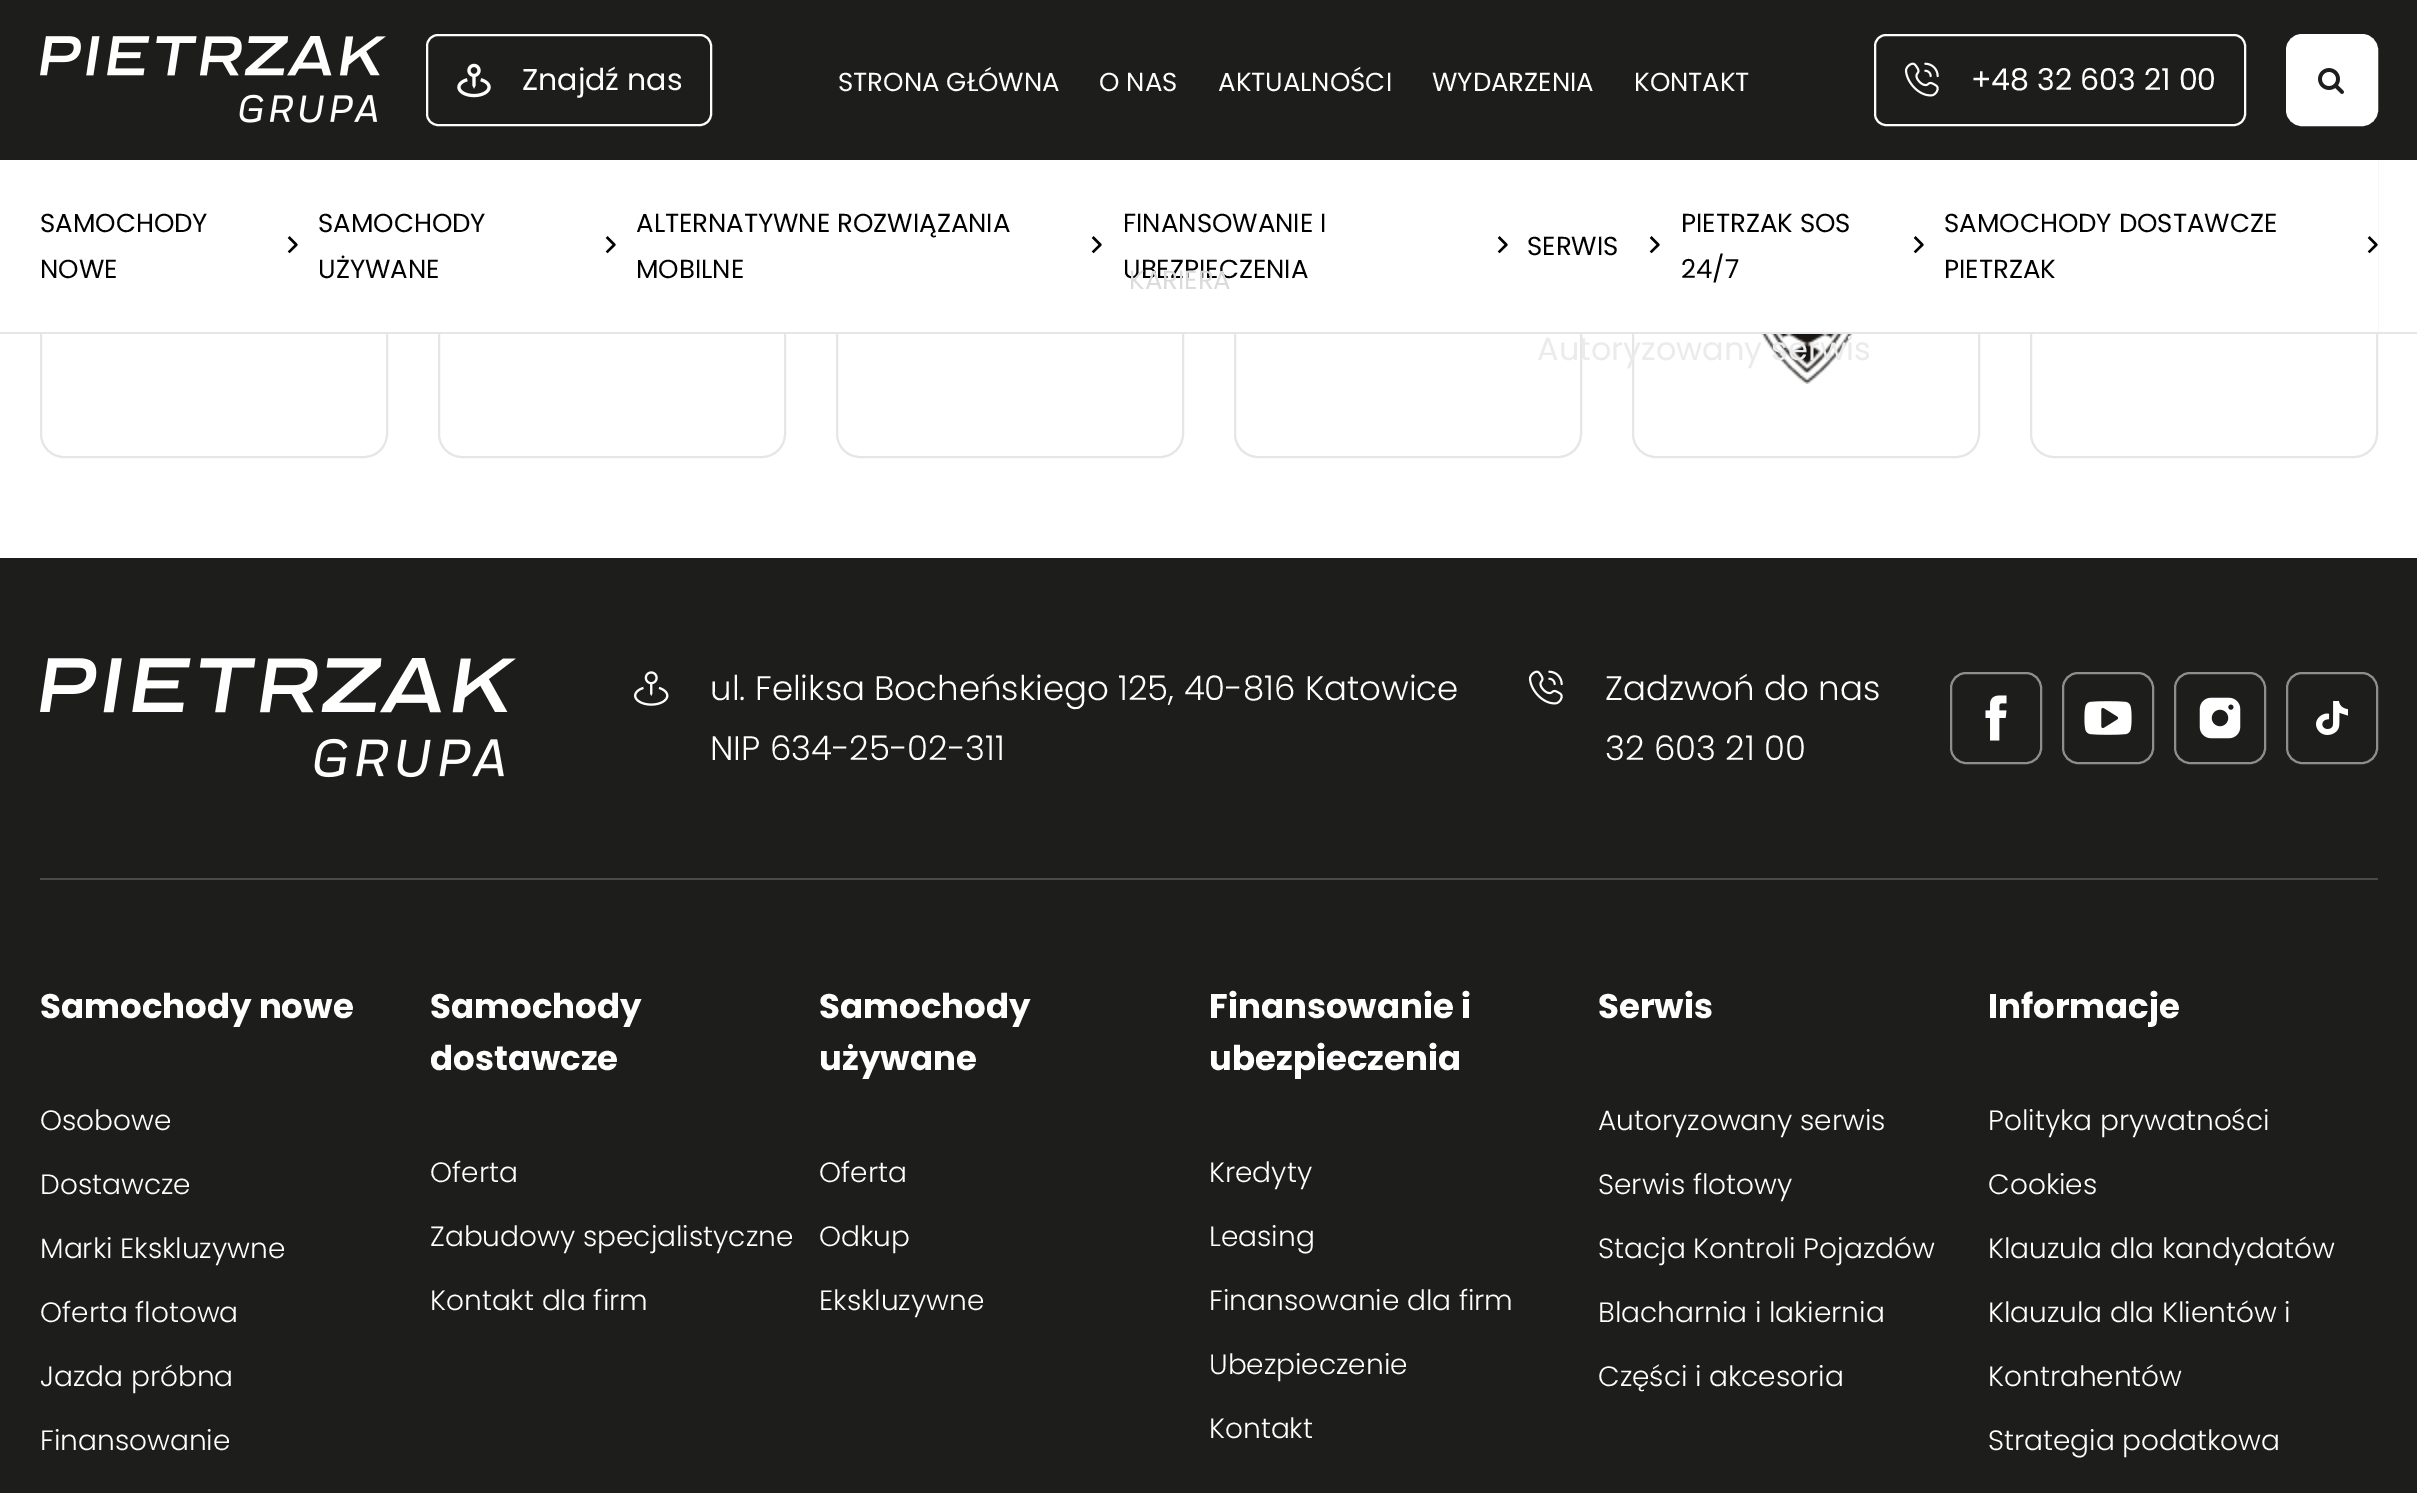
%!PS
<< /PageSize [2417 1493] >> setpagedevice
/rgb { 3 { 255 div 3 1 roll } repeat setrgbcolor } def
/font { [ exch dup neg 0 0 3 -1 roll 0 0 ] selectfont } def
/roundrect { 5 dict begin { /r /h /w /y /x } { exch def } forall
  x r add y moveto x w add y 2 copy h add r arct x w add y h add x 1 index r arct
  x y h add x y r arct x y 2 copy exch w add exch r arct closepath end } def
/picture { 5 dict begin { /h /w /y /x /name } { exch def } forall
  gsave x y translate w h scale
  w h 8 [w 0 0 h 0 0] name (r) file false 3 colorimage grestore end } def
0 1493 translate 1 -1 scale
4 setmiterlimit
255 255 255 rgb
0 0 2417 1493 rectfill
230 230 230 rgb
2 setlinewidth
41 111 346 346 23 roundrect stroke
439 111 346 346 23 roundrect stroke
837 111 346 346 23 roundrect stroke
1235 111 346 346 23 roundrect stroke
1633 111 346 346 23 roundrect stroke
2031 111 346 346 23 roundrect stroke
29 29 27 rgb
0 0 2417 160 rectfill
(img/1.rgb) 40 36 346 87 picture
255 255 255 rgb
427 35 284 90 11 roundrect stroke
(img/2.rgb) 457 63 34 35 picture
1875 35 370 90 11 roundrect stroke
(img/3.rgb) 1904 62 35 35 picture
2288 36 88 88 14 roundrect gsave fill grestore
4 setlinewidth
stroke
(img/4.rgb) 2318 68 26 26 picture
40 160 2338 172 rectfill
230 230 230 rgb
0 332 2417 2 rectfill
(img/5.rgb) 287 236 11 18 picture
(img/5.rgb) 605 236 11 18 picture
(img/5.rgb) 1091 236 11 18 picture
(img/5.rgb) 1497 236 11 18 picture
(img/5.rgb) 1913 236 11 18 picture
(img/5.rgb) 2367 236 11 18 picture
(img/5.rgb) 1649 236 11 18 picture
(img/6.rgb) 1761 334 92 50 picture
29 29 27 rgb
0 558 2417 935 rectfill
(img/7.rgb) 40 658 476 120 picture
(img/8.rgb) 634 671 35 35 picture
(img/3.rgb) 1528 670 35 35 picture
142 142 141 rgb
2 setlinewidth
1951 673 90 90 15 roundrect stroke
(img/9.rgb) 1985 695 22 46 picture
2063 673 90 90 15 roundrect stroke
(img/10.rgb) 2084 701 48 34 picture
2175 673 90 90 15 roundrect stroke
(img/11.rgb) 2199 697 42 42 picture
2287 673 90 90 15 roundrect stroke
(img/12.rgb) 2316 701 32 34 picture
74 74 73 rgb
40 878 2338 2 rectfill
/Poppins-Regular 30 font
255 255 255 rgb
522 90 moveto (Znajdź nas) show
/Poppins-Regular 26 font
[
  [(STRONA GŁÓWNA) 838 91]
  [(O NAS) 1099 91]
  [(AKTUALNOŚCI) 1218 91]
  [(WYDARZENIA) 1432 91]
  [(KONTAKT) 1634 91]
] { aload pop moveto show } forall
/Poppins-Regular 30 font
1971 90 moveto (+48 32 603 21 00) show
/Poppins-Regular 26 font
0 0 0 rgb
[
  [(SAMOCHODY) 40 232]
  [(NOWE) 40 278]
  [(SAMOCHODY) 318 232]
  [(UŻYWANE) 318 278]
  [(ALTERNATYWNE ROZWIĄZANIA) 636 232]
  [(MOBILNE) 636 278]
  [(FINANSOWANIE I) 1123 232]
  [(UBEZPIECZENIA) 1123 278]
] { aload pop moveto show } forall
219 219 219 rgb
1129 289 moveto (KARIERA) show
0 0 0 rgb
[
  [(PIETRZAK SOS) 1681 232]
  [(24/7) 1681 278]
  [(SAMOCHODY DOSTAWCZE) 1944 232]
  [(PIETRZAK) 1944 278]
  [(SERWIS) 1527 255]
] { aload pop moveto show } forall
/Poppins-Regular 32 font
235 235 235 rgb
1537 360 moveto (Autoryzowany serwis) show
/Poppins-Light 34 font
255 255 255 rgb
[
  [(ul. Feliksa Bocheńskiego 125, 40-816 Katowice) 710 700]
  [(NIP 634-25-02-311) 710 760]
  [(Zadzwoń do nas) 1605 700]
  [(32 603 21 00) 1605 760]
] { aload pop moveto show } forall
/Poppins-Bold 34 font
40 1018 moveto (Samochody nowe) show
/Poppins-Light 28 font
[
  [(Osobowe) 40 1130]
  [(Dostawcze) 40 1194]
  [(Marki Ekskluzywne) 40 1258]
  [(Oferta flotowa) 40 1322]
  [(Jazda próbna) 40 1386]
  [(Finansowanie) 40 1450]
] { aload pop moveto show } forall
/Poppins-Bold 34 font
430 1018 moveto (Samochody) show
430 1070 moveto (dostawcze) show
/Poppins-Light 28 font
[
  [(Oferta) 430 1182]
  [(Zabudowy specjalistyczne) 430 1246]
  [(Kontakt dla firm) 430 1310]
] { aload pop moveto show } forall
/Poppins-Bold 34 font
819 1018 moveto (Samochody) show
819 1070 moveto (używane) show
/Poppins-Light 28 font
[
  [(Oferta) 819 1182]
  [(Odkup) 819 1246]
  [(Ekskluzywne) 819 1310]
] { aload pop moveto show } forall
/Poppins-Bold 34 font
1209 1018 moveto (Finansowanie i) show
1209 1070 moveto (ubezpieczenia) show
/Poppins-Light 28 font
[
  [(Kredyty) 1209 1182]
  [(Leasing) 1209 1246]
  [(Finansowanie dla firm) 1209 1310]
  [(Ubezpieczenie) 1209 1374]
  [(Kontakt) 1209 1438]
] { aload pop moveto show } forall
/Poppins-Bold 34 font
1598 1018 moveto (Serwis) show
/Poppins-Light 28 font
[
  [(Autoryzowany serwis) 1598 1130]
  [(Serwis flotowy) 1598 1194]
  [(Stacja Kontroli Pojazdów) 1598 1258]
  [(Blacharnia i lakiernia) 1598 1322]
  [(Części i akcesoria) 1598 1386]
] { aload pop moveto show } forall
/Poppins-Bold 34 font
1988 1018 moveto (Informacje) show
/Poppins-Light 28 font
[
  [(Polityka prywatności) 1988 1130]
  [(Cookies) 1988 1194]
  [(Klauzula dla kandydatów) 1988 1258]
  [(Klauzula dla Klientów i) 1988 1322]
  [(Kontrahentów) 1988 1386]
  [(Strategia podatkowa) 1988 1450]
] { aload pop moveto show } forall
showpage
